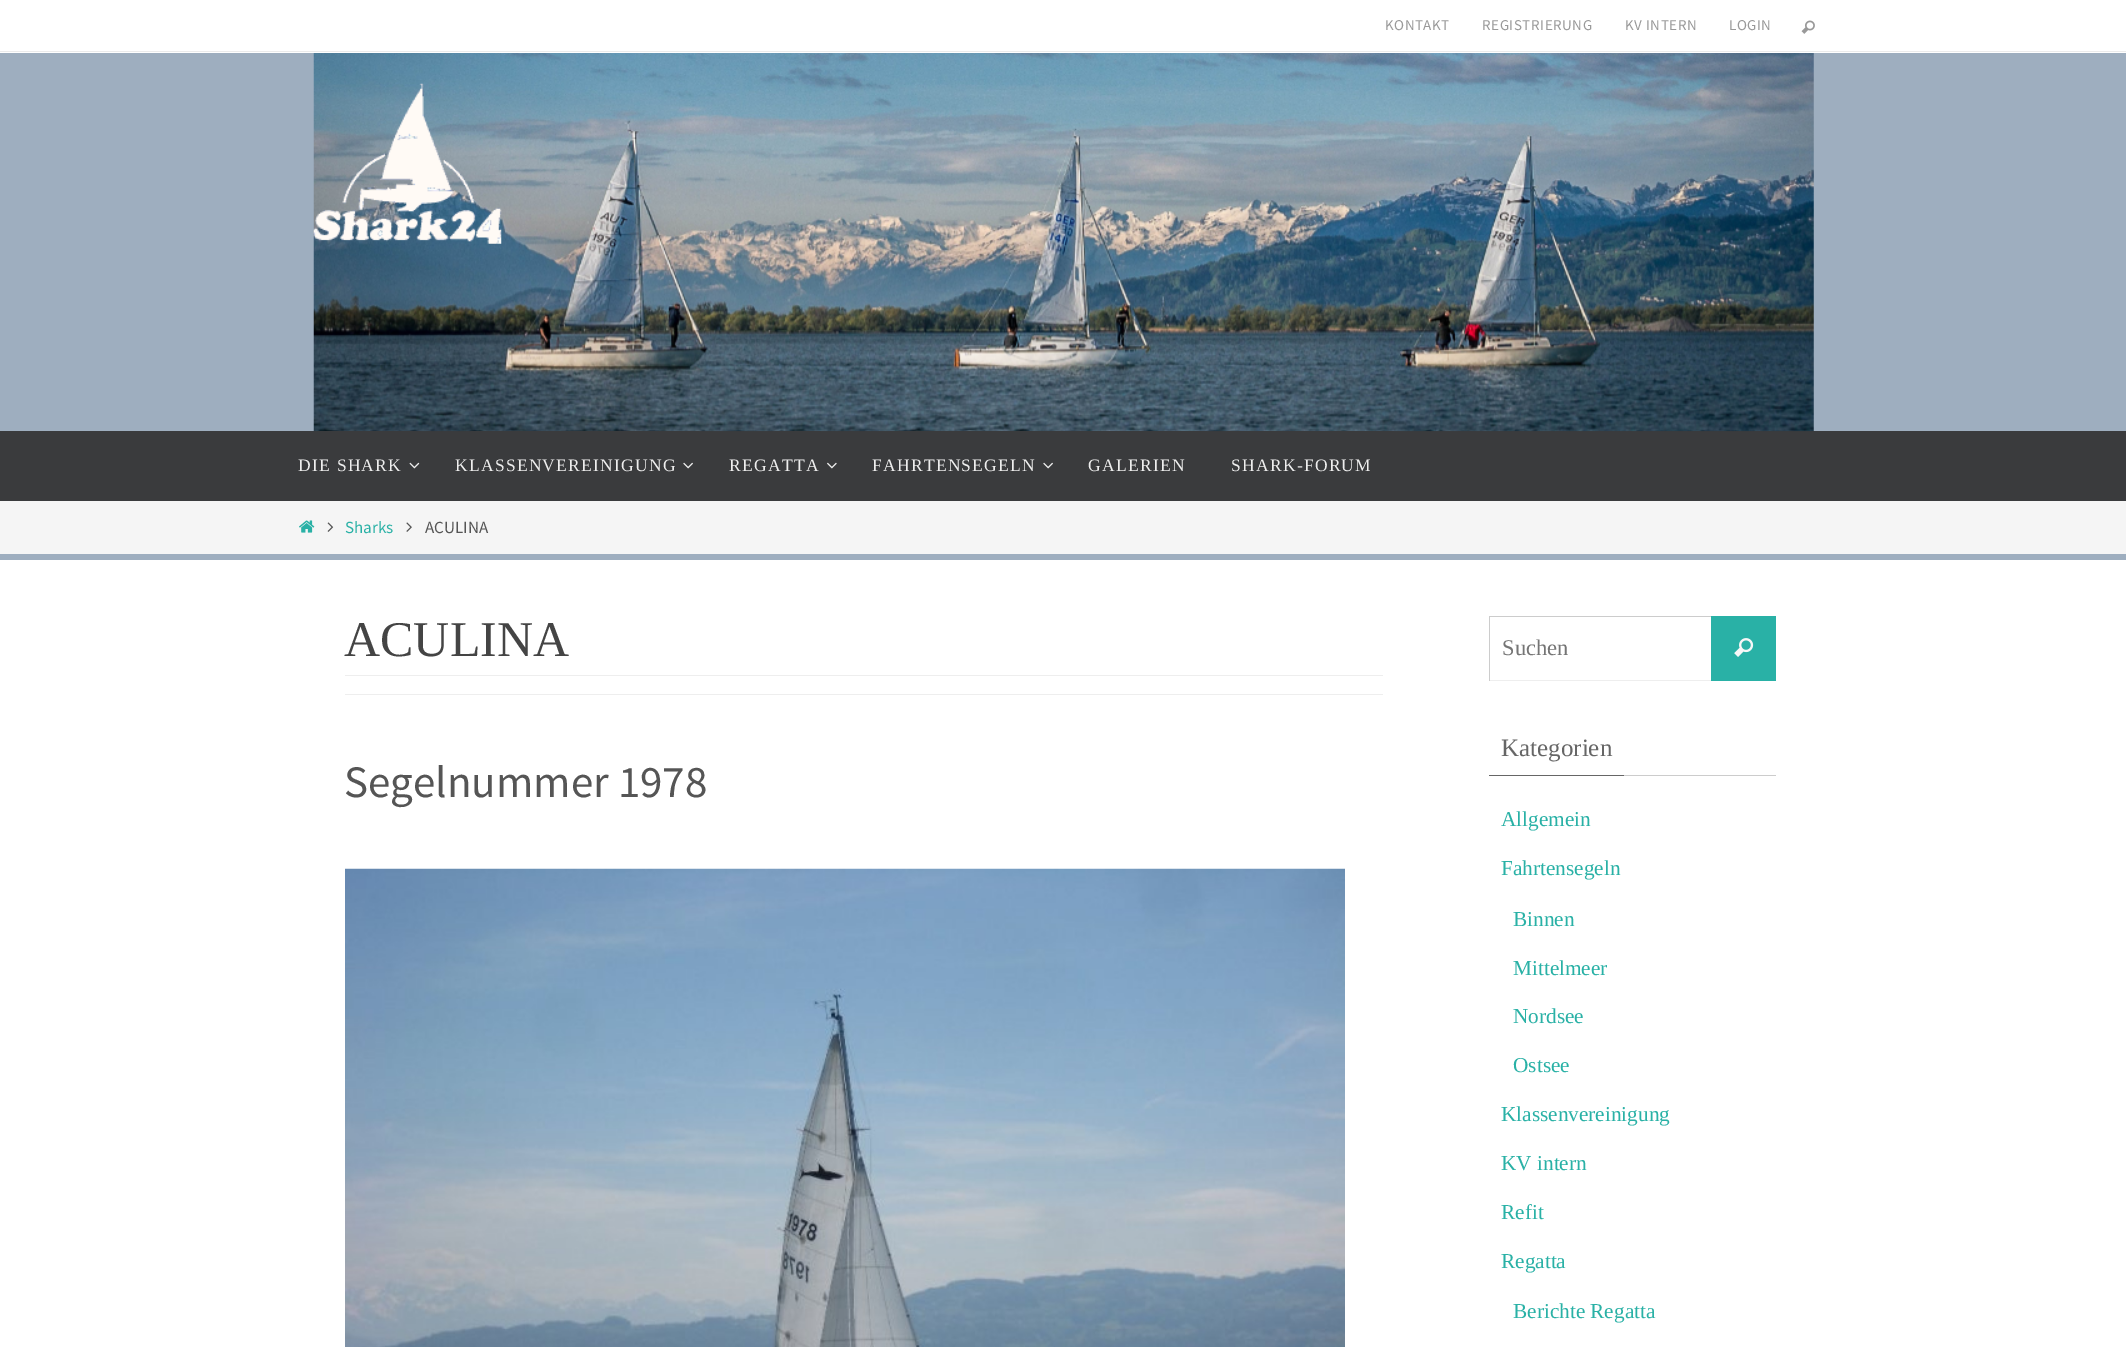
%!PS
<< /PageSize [2126 1347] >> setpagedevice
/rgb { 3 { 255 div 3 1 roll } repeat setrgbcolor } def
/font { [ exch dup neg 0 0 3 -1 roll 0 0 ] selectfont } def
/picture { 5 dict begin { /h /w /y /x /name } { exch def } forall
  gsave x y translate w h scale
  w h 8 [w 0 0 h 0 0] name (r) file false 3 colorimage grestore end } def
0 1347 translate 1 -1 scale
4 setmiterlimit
158 174 191 rgb
0 0 2126 1347 rectfill
255 255 255 rgb
0 0 2126 53 rectfill
235 235 235 rgb
0 51 2126 1 rectfill
(img/1.rgb) 1801 20 14 14 picture
58 59 61 rgb
0 431 2126 70 rectfill
(img/2.rgb) 313 53 1501 379 picture
(img/3.rgb) 313 83 189 161 picture
318 431 98 1 rectfill
(img/4.rgb) 409 462 11 7 picture
471 431 228 1 rectfill
(img/5.rgb) 683 462 10 7 picture
775 431 46 1 rectfill
(img/6.rgb) 827 462 10 7 picture
890 431 317 1 rectfill
(img/5.rgb) 1043 462 10 7 picture
1227 431 167 1 rectfill
245 245 245 rgb
0 501 2126 53 rectfill
(img/7.rgb) 299 520 16 13 picture
(img/8.rgb) 327 522 7 10 picture
(img/9.rgb) 406 522 6 10 picture
[
  [0 560 2126 787 255 255 255]
  [345 675 1038 1 238 238 238]
  [345 694 1038 1 238 238 238]
] { aload pop rgb rectfill } forall
(img/10.rgb) 345 868 1000 479 picture
[
  [1711 616 65 65 41 177 166]
  [1489 616 222 1 204 204 204]
  [1489 680 222 1 238 238 238]
  [1489 616 1 65 204 204 204]
] { aload pop rgb rectfill } forall
(img/11.rgb) 1734 638 20 19 picture
1624 775 152 1 rectfill
102 102 102 rgb
1489 775 135 1 rectfill
/SourceSansPro-Regular 15 font
153 153 153 rgb
1385 30 moveto 0.5 0 (KONTAKT) ashow
1482 30 moveto 0.5 0 (REGISTRIERUNG) ashow
1625 30 moveto 0.5 0 (KV INTERN) ashow
1729 30 moveto 0.5 0 (LOGIN) ashow
/LiberationSerif-Regular 17.5 font
238 238 238 rgb
298 471 moveto 1.25 0 (DIE SHARK) ashow
455 471 moveto 1.25 0 (KLASSENVEREINIGUNG) ashow
729 471 moveto 1.25 0 (REGATTA) ashow
872 471 moveto 1.25 0 (FAHRTENSEGELN) ashow
1088 471 moveto 1.25 0 (GALERIEN) ashow
1231 471 moveto 1.25 0 (SHARK-FORUM) ashow
/SourceSansPro-Regular 17 font
41 177 166 rgb
345 533 moveto (Sharks) show
85 85 85 rgb
425 533 moveto (ACULINA) show
/LiberationSerif-Regular 50 font
68 68 68 rgb
344 656 moveto (ACULINA) show
/SourceSansPro-Regular 45 font
85 85 85 rgb
344 797 moveto (Segelnummer 1978) show
/LiberationSerif-Regular 22.5 font
117 117 117 rgb
1502 655 moveto (Suchen) show
/LiberationSerif-Regular 25 font
102 102 102 rgb
1501 756 moveto (Kategorien) show
/LiberationSerif-Regular 21.25 font
41 177 166 rgb
[
  [(Allgemein) 1501 826]
  [(Fahrtensegeln) 1501 875]
  [(Binnen) 1513 926]
  [(Mittelmeer) 1513 975]
  [(Nordsee) 1513 1023]
  [(Ostsee) 1513 1072]
  [(Klassenvereinigung) 1501 1121]
  [(KV intern) 1501 1170]
  [(Refit) 1501 1219]
  [(Regatta) 1501 1268]
  [(Berichte Regatta) 1513 1318]
] { aload pop moveto show } forall
showpage
